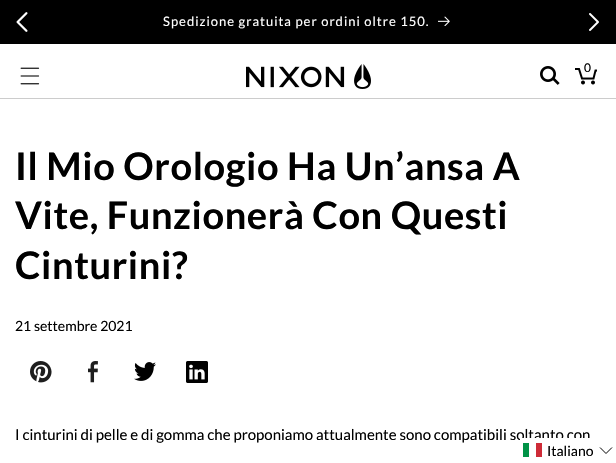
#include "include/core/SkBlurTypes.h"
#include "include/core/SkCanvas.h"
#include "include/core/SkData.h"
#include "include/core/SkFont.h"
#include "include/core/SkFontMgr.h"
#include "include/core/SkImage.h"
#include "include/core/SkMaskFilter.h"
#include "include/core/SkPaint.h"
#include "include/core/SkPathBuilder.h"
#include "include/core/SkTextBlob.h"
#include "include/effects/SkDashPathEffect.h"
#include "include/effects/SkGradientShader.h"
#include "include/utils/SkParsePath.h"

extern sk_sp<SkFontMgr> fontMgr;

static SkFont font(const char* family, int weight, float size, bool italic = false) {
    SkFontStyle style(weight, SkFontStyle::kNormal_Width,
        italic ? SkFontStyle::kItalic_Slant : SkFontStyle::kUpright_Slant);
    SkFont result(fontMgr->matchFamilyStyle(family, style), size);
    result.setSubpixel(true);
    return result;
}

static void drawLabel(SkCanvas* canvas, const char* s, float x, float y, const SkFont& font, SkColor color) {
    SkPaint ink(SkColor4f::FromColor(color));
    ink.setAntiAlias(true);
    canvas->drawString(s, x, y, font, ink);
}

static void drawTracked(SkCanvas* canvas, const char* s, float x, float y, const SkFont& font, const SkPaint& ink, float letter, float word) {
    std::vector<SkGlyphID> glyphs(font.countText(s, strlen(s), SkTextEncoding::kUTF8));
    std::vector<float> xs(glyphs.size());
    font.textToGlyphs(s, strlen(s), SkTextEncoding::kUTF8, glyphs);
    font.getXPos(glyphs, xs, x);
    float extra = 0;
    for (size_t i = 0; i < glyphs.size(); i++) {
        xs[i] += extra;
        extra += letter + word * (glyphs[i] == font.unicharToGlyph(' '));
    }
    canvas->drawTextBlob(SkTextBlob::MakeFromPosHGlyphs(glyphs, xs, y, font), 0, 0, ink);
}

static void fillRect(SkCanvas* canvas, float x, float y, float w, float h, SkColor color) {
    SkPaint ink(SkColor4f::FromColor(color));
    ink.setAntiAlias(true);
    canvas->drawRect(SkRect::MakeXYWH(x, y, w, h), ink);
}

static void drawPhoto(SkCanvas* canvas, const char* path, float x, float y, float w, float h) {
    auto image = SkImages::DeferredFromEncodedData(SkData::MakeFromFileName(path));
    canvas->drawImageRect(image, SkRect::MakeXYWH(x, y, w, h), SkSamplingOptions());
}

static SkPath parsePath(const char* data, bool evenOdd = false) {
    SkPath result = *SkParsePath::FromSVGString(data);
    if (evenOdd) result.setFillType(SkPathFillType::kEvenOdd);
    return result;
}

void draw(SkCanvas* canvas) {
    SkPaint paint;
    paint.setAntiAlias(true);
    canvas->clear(0xFFFFFFFF);
    fillRect(canvas, 0, 0, 616, 44, 0xFF000000);
    drawPhoto(canvas, "assets/img1.png", 16, 12, 12, 20);
    SkFont font1 = font("Lato", 400, 13);
    paint.setColor(0xFFFFFFFF);
    drawTracked(canvas, "Spedizione gratuita per ordini oltre 150.", 163, 26, font1, paint, 1, 0);
    drawPhoto(canvas, "assets/img2.png", 438, 16, 12, 10);
    drawPhoto(canvas, "assets/img3.png", 589, 13, 10, 18);
    fillRect(canvas, 0, 98, 616, 1, 0xFFCCCCCC);
    drawPhoto(canvas, "assets/img4.png", 20, 67, 20, 18);
    drawPhoto(canvas, "assets/img5.png", 246, 64, 125, 25);
    drawPhoto(canvas, "assets/img6.png", 540, 66, 20, 19);
    drawPhoto(canvas, "assets/img7.png", 575, 68, 22, 17);
    SkFont font2 = font("Lato", 400, 12);
    drawLabel(canvas, "0", 584, 72, font2, 0xFF000000);
    SkFont font3 = font("Lato", 700, 38);
    paint.setColor(0xFF000000);
    drawTracked(canvas, "Il Mio Orologio Ha Un’ansa A", 15, 180, font3, paint, 0.6f, 0);
    drawTracked(canvas, "Vite, Funzionerà Con Questi", 15, 229, font3, paint, 0.6f, 0);
    drawTracked(canvas, "Cinturini?", 15, 279, font3, paint, 0.6f, 0);
    SkFont font4 = font("Lato", 400, 14);
    drawLabel(canvas, "21 settembre 2021", 15, 331, font4, 0xFF000000);
    drawPhoto(canvas, "assets/img8.png", 30, 361, 22, 22);
    drawPhoto(canvas, "assets/img9.png", 88, 361, 10, 22);
    drawPhoto(canvas, "assets/img10.png", 134, 362, 22, 19);
    drawPhoto(canvas, "assets/img11.png", 186, 361, 22, 22);
    SkFont font5 = font("Lato", 400, 15);
    drawLabel(canvas, "I cinturini di pelle e di gomma che proponiamo attualmente sono compatibili soltanto con", 15, 440, font5, 0xFF000000);
    fillRect(canvas, 520, 438, 70, 3, 0xFFFFFFFF);
    fillRect(canvas, 523, 443, 6, 14, 0xFF009246);
    fillRect(canvas, 536, 443, 6, 14, 0xFFCE2B37);
    drawLabel(canvas, "Italiano", 547, 456, font4, 0xFF000000);
    paint.setStroke(true);
    paint.setStrokeWidth(1);
    canvas->drawPath(parsePath("M600 447.5L606 453.5L612 447.5"), paint);
}
